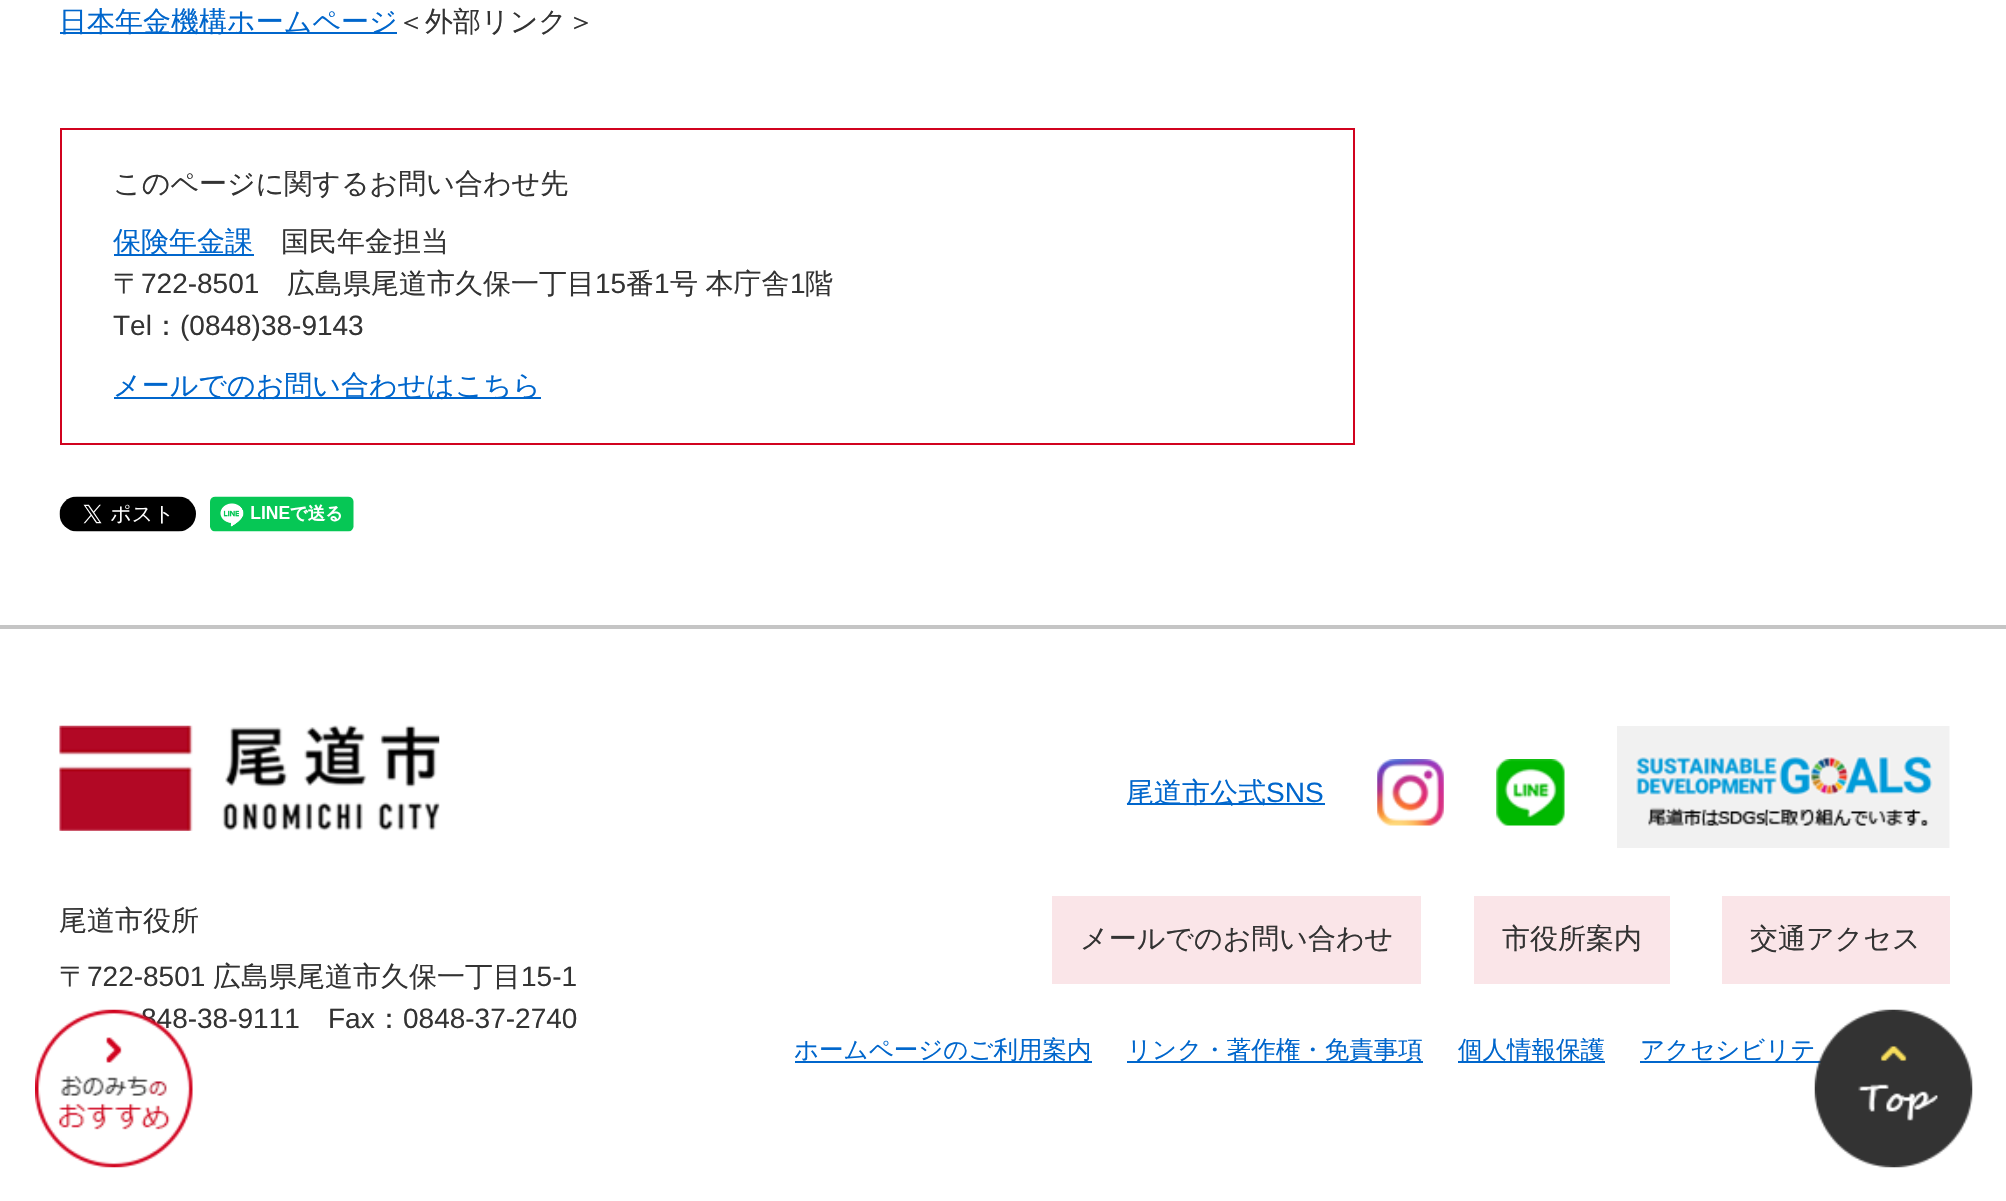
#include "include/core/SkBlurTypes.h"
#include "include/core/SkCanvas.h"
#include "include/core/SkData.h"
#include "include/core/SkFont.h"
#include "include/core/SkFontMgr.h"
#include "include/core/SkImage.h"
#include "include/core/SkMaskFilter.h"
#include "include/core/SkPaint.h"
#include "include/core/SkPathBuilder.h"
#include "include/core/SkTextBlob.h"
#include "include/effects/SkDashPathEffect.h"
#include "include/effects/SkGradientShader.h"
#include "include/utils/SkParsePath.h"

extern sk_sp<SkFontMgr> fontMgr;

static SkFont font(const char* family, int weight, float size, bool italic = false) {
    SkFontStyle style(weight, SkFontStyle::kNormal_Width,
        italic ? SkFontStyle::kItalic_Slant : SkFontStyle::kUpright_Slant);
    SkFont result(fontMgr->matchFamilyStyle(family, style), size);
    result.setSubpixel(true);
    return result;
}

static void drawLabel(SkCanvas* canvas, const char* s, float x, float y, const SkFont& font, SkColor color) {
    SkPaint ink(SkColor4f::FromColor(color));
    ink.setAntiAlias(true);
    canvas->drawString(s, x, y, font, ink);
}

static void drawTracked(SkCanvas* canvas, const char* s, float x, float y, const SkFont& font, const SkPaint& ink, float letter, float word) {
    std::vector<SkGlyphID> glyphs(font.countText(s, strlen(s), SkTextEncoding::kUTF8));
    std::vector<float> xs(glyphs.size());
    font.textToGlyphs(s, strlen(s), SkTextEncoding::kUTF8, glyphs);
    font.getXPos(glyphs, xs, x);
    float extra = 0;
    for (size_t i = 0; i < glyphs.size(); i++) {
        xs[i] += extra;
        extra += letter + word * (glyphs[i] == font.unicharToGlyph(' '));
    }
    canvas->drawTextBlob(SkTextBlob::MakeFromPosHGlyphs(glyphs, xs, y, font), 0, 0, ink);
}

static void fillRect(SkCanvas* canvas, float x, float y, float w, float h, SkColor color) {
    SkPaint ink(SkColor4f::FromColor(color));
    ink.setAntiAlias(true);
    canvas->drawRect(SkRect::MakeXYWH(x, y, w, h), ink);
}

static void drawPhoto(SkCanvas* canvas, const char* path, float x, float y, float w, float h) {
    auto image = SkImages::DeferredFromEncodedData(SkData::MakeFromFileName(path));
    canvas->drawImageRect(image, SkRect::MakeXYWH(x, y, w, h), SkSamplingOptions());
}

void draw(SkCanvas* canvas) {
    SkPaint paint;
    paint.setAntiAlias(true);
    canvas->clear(0xFFFFFFFF);
    fillRect(canvas, 60, 32, 337, 2, 0xFF0066CC);
    SkFont font1 = font("WenQuanYi Zen Hei", 500, 28);
    drawLabel(canvas, "日本年金機構ホームページ", 59, 31, font1, 0xFF0066CC);
    drawLabel(canvas, "＜外部リンク＞", 397, 31, font1, 0xFF333333);
    paint.setStroke(true);
    paint.setStrokeWidth(2);
    paint.setColor(0xFFD1031F);
    canvas->drawRect(SkRect::MakeXYWH(61, 129, 1293, 315), paint);
    drawLabel(canvas, "このページに関するお問い合わせ先", 113, 193, font1, 0xFF333333);
    fillRect(canvas, 114, 254, 140, 2, 0xFF0066CC);
    drawLabel(canvas, "保険年金課", 113, 251, font1, 0xFF0066CC);
    drawLabel(canvas, "国民年金担当", 281, 251, font1, 0xFF333333);
    drawLabel(canvas, "〒", 113, 293, font1, 0xFF333333);
    SkFont font2 = font("Liberation Sans", 400, 28);
    drawLabel(canvas, "722-8501", 141, 293, font2, 0xFF333333);
    drawLabel(canvas, "広島県尾道市久保一丁目", 287, 293, font1, 0xFF333333);
    drawLabel(canvas, "15", 595, 293, font2, 0xFF333333);
    drawLabel(canvas, "番", 626, 293, font1, 0xFF333333);
    drawLabel(canvas, "1", 654, 293, font2, 0xFF333333);
    paint.setStroke(false);
    paint.setColor(0xFF333333);
    drawTracked(canvas, "号 本庁舎", 670, 293, font1, paint, 0, -1);
    drawLabel(canvas, "1", 790, 293, font2, 0xFF333333);
    drawLabel(canvas, "階", 805, 293, font1, 0xFF333333);
    drawLabel(canvas, "Tel", 113, 335, font2, 0xFF333333);
    drawLabel(canvas, "：", 152, 335, font1, 0xFF333333);
    drawLabel(canvas, "(0848)38-9143", 180, 335, font2, 0xFF333333);
    fillRect(canvas, 114, 397, 427, 2, 0xFF0066CC);
    drawLabel(canvas, "メールでのお問い合わせはこちら", 113, 395, font1, 0xFF0066CC);
    drawPhoto(canvas, "assets/img1.png", 59, 496, 137, 36);
    drawPhoto(canvas, "assets/img2.png", 210, 496, 144, 36);
    fillRect(canvas, 0, 625, 2006, 4, 0xFFC5C5C5);
    drawPhoto(canvas, "assets/img3.png", 59, 725, 381, 106);
    drawLabel(canvas, "尾道市役所", 59, 930, font1, 0xFF333333);
    drawLabel(canvas, "〒", 59, 986, font1, 0xFF333333);
    drawLabel(canvas, "722-8501", 87, 986, font2, 0xFF333333);
    drawLabel(canvas, "広島県尾道市久保一丁目", 213, 986, font1, 0xFF333333);
    drawLabel(canvas, "15-1", 521, 986, font2, 0xFF333333);
    drawLabel(canvas, "848-38-9111", 141, 1028, font2, 0xFF333333);
    drawLabel(canvas, "Fax", 328, 1028, font2, 0xFF333333);
    drawLabel(canvas, "：", 375, 1028, font1, 0xFF333333);
    drawLabel(canvas, "0848-37-2740", 403, 1028, font2, 0xFF333333);
    fillRect(canvas, 1127, 803, 198, 2, 0xFF0066CC);
    drawLabel(canvas, "尾道市公式", 1126, 802, font1, 0xFF0066CC);
    drawLabel(canvas, "SNS", 1266, 802, font2, 0xFF0066CC);
    drawPhoto(canvas, "assets/img4.png", 1377, 759, 67, 67);
    drawPhoto(canvas, "assets/img5.png", 1496, 759, 69, 67);
    drawPhoto(canvas, "assets/img6.png", 1617, 726, 333, 122);
    fillRect(canvas, 1052, 896, 369, 88, 0xFFFAE5E8);
    drawLabel(canvas, "メールでのお問い合わせ", 1080, 948, font1, 0xFF333333);
    fillRect(canvas, 1474, 896, 196, 88, 0xFFFAE5E8);
    drawLabel(canvas, "市役所案内", 1502, 948, font1, 0xFF333333);
    fillRect(canvas, 1722, 896, 228, 88, 0xFFFAE5E8);
    drawLabel(canvas, "交通アクセス", 1750, 948, font1, 0xFF333333);
    fillRect(canvas, 795, 1061, 297, 2, 0xFF0066CC);
    SkFont font3 = font("WenQuanYi Zen Hei", 500, 24.5f);
    drawLabel(canvas, "ホームページのご利用案内", 794, 1058, font3, 0xFF0066CC);
    fillRect(canvas, 1127, 1061, 296, 2, 0xFF0066CC);
    drawLabel(canvas, "リンク・著作権・免責事項", 1127, 1058, font3, 0xFF0066CC);
    fillRect(canvas, 1458, 1061, 147, 2, 0xFF0066CC);
    drawLabel(canvas, "個人情報保護", 1458, 1058, font3, 0xFF0066CC);
    fillRect(canvas, 1640, 1061, 181, 2, 0xFF0066CC);
    drawLabel(canvas, "アクセシビリテ", 1640, 1058, font3, 0xFF0066CC);
    drawPhoto(canvas, "assets/img7.png", 35, 1009, 158, 159);
    drawPhoto(canvas, "assets/img8.png", 1814, 1009, 159, 159);
}
